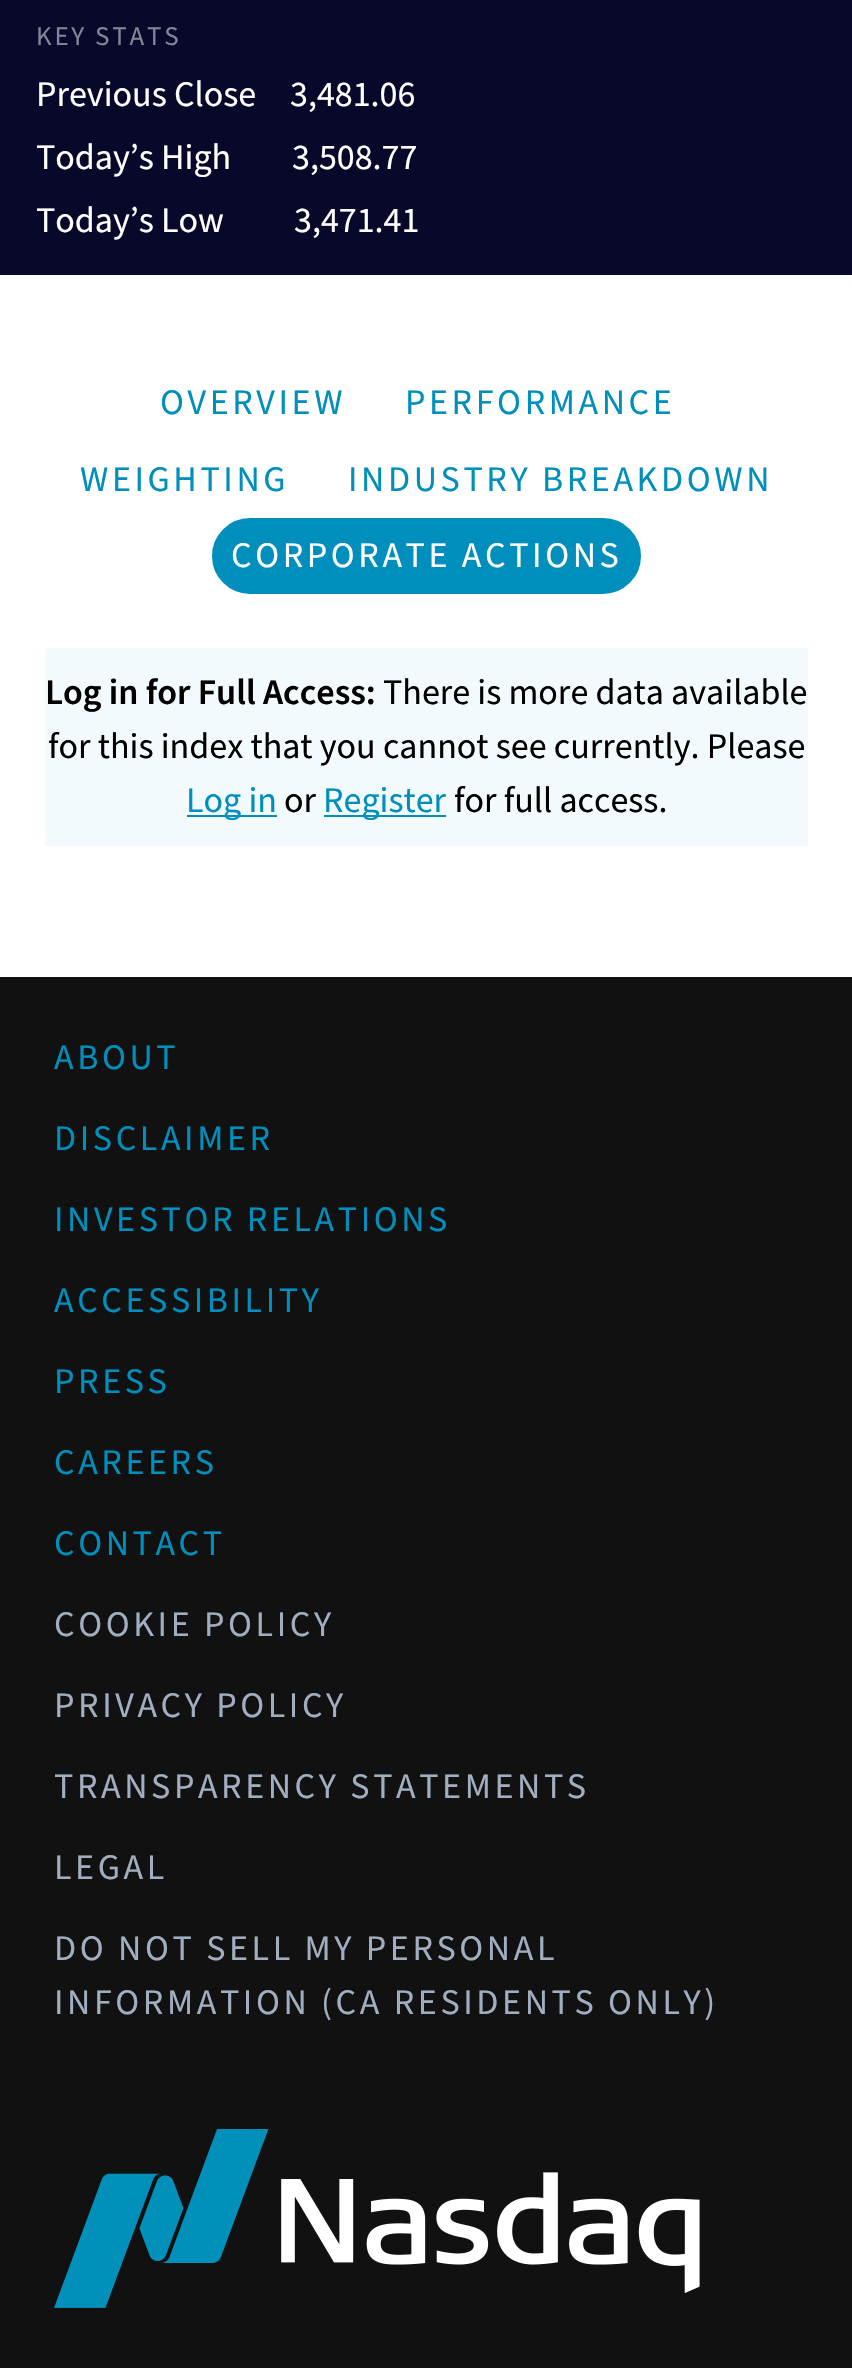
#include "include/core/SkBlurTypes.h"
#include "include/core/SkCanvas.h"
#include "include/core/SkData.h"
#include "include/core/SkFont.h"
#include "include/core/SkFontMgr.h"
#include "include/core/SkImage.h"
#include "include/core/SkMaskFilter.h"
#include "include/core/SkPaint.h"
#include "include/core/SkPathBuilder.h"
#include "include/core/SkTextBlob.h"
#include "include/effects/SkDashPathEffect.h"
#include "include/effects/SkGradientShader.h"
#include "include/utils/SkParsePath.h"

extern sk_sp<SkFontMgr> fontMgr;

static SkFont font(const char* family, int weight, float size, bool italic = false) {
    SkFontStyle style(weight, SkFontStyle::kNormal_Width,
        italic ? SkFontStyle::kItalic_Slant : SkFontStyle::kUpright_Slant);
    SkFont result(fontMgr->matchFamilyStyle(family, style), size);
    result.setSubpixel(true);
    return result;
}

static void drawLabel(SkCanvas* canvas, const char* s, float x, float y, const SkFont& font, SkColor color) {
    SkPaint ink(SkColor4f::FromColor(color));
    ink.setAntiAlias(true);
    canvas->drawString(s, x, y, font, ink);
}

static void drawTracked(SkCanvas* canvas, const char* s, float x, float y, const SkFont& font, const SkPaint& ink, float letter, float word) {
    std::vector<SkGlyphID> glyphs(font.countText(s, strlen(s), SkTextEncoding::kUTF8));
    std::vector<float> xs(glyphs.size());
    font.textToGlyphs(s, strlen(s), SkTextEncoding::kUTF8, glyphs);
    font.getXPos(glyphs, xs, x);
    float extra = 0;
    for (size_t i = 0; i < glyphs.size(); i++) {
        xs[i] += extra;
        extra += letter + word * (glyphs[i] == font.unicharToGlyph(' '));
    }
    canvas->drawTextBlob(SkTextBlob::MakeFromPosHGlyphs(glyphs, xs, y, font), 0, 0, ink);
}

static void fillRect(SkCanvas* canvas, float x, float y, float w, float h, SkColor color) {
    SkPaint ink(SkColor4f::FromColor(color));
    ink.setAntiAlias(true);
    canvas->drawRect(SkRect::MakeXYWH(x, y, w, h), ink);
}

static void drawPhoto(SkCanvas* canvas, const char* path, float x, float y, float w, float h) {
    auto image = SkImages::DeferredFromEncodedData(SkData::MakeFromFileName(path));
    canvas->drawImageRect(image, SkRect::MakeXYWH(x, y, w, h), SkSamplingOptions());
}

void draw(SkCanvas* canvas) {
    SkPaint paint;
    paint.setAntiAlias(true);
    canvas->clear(0xFFFFFFFF);
    fillRect(canvas, 0, 0, 852, 275, 0xFF08082A);
    SkFont font1 = font("Source Sans Pro", 400, 27);
    paint.setColor(0xFF848495);
    drawTracked(canvas, "KEY STATS", 36, 45, font1, paint, 2.75f, 0);
    SkFont font2 = font("Source Sans Pro", 400, 36);
    drawLabel(canvas, "Previous Close", 36, 106, font2, 0xFFFFFFFF);
    drawLabel(canvas, "3,481.06", 290, 106, font2, 0xFFFFFFFF);
    drawLabel(canvas, "Today’s High", 36, 169, font2, 0xFFFFFFFF);
    drawLabel(canvas, "3,508.77", 292, 169, font2, 0xFFFFFFFF);
    drawLabel(canvas, "Today’s Low", 36, 232, font2, 0xFFFFFFFF);
    drawLabel(canvas, "3,471.41", 294, 232, font2, 0xFFFFFFFF);
    paint.setColor(0xFF008FBC);
    drawTracked(canvas, "OVERVIEW", 160, 414, font2, paint, 3.6f, 0);
    drawTracked(canvas, "PERFORMANCE", 405, 414, font2, paint, 3.6f, 0);
    drawTracked(canvas, "WEIGHTING", 80, 491, font2, paint, 3.6f, 0);
    drawTracked(canvas, "INDUSTRY BREAKDOWN", 348, 491, font2, paint, 3.6f, 0);
    canvas->drawRoundRect(SkRect::MakeXYWH(213, 519, 427, 74), 37, 37, paint);
    paint.setStroke(true);
    paint.setStrokeWidth(2);
    canvas->drawRoundRect(SkRect::MakeXYWH(213, 519, 427, 74), 37, 37, paint);
    paint.setStroke(false);
    paint.setColor(0xFFFFFFFF);
    drawTracked(canvas, "CORPORATE ACTIONS", 231, 567, font2, paint, 3.6f, 0);
    fillRect(canvas, 45, 648, 763, 198, 0xFFF3FAFD);
    SkFont font3 = font("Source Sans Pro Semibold", 600, 36);
    drawLabel(canvas, "Log in for Full Access:", 45, 704, font3, 0xFF000000);
    drawLabel(canvas, "There is more data available", 383, 704, font2, 0xFF000000);
    drawLabel(canvas, "for this index that you cannot see currently. Please", 48, 758, font2, 0xFF000000);
    fillRect(canvas, 187, 815, 90, 2, 0xFF008FBC);
    drawLabel(canvas, "Log in", 186, 812, font2, 0xFF008FBC);
    drawLabel(canvas, "or", 284, 812, font2, 0xFF000000);
    fillRect(canvas, 324, 815, 122, 2, 0xFF008FBC);
    drawLabel(canvas, "Register", 323, 812, font2, 0xFF008FBC);
    drawLabel(canvas, "for full access.", 454, 812, font2, 0xFF000000);
    fillRect(canvas, 0, 977, 852, 1391, 0xFF111111);
    paint.setColor(0xFF008FBC);
    drawTracked(canvas, "ABOUT", 54, 1069, font2, paint, 3.6f, 0);
    drawTracked(canvas, "DISCLAIMER", 54, 1150, font2, paint, 3.6f, 0);
    drawTracked(canvas, "INVESTOR RELATIONS", 54, 1231, font2, paint, 3.6f, 0);
    drawTracked(canvas, "ACCESSIBILITY", 54, 1312, font2, paint, 3.6f, 0);
    drawTracked(canvas, "PRESS", 54, 1393, font2, paint, 3.6f, 0);
    drawTracked(canvas, "CAREERS", 54, 1474, font2, paint, 3.6f, 0);
    drawTracked(canvas, "CONTACT", 54, 1555, font2, paint, 3.6f, 0);
    paint.setColor(0xFFA0AEC0);
    drawTracked(canvas, "COOKIE POLICY", 54, 1636, font2, paint, 3.6f, 0);
    drawTracked(canvas, "PRIVACY POLICY", 54, 1717, font2, paint, 3.6f, 0);
    drawTracked(canvas, "TRANSPARENCY STATEMENTS", 54, 1798, font2, paint, 3.6f, 0);
    drawTracked(canvas, "LEGAL", 54, 1879, font2, paint, 3.6f, 0);
    drawTracked(canvas, "DO NOT SELL MY PERSONAL", 54, 1960, font2, paint, 3.6f, 0);
    drawTracked(canvas, "INFORMATION (CA RESIDENTS ONLY)", 54, 2014, font2, paint, 3.6f, 0);
    drawPhoto(canvas, "assets/img1.png", 54, 2129, 646, 179);
}
